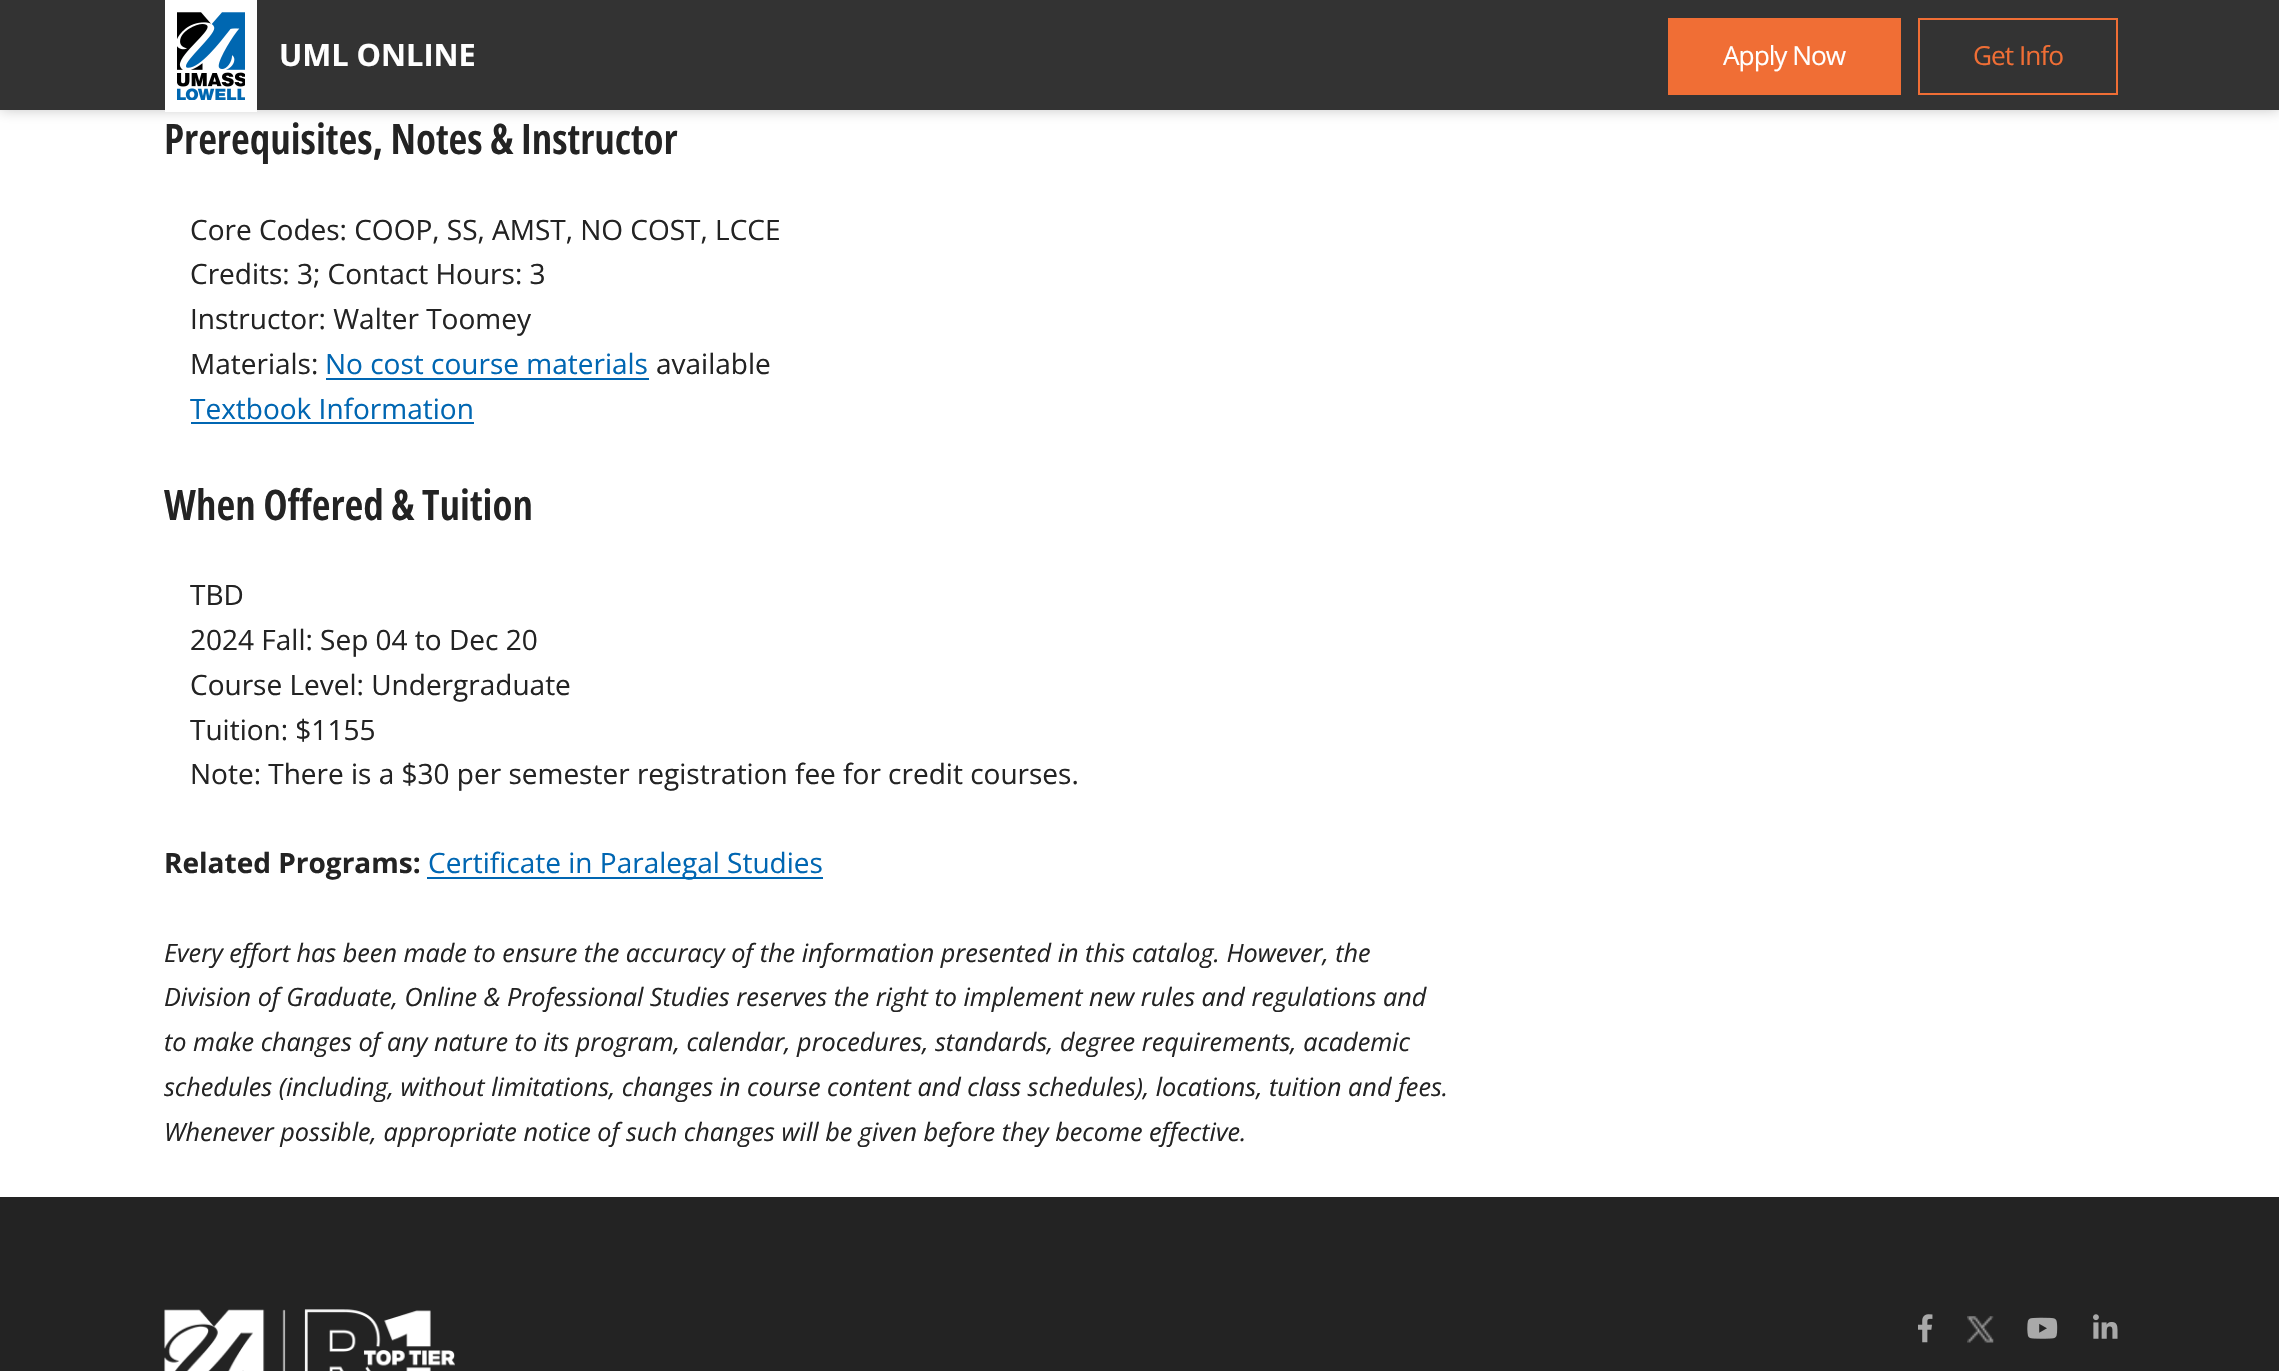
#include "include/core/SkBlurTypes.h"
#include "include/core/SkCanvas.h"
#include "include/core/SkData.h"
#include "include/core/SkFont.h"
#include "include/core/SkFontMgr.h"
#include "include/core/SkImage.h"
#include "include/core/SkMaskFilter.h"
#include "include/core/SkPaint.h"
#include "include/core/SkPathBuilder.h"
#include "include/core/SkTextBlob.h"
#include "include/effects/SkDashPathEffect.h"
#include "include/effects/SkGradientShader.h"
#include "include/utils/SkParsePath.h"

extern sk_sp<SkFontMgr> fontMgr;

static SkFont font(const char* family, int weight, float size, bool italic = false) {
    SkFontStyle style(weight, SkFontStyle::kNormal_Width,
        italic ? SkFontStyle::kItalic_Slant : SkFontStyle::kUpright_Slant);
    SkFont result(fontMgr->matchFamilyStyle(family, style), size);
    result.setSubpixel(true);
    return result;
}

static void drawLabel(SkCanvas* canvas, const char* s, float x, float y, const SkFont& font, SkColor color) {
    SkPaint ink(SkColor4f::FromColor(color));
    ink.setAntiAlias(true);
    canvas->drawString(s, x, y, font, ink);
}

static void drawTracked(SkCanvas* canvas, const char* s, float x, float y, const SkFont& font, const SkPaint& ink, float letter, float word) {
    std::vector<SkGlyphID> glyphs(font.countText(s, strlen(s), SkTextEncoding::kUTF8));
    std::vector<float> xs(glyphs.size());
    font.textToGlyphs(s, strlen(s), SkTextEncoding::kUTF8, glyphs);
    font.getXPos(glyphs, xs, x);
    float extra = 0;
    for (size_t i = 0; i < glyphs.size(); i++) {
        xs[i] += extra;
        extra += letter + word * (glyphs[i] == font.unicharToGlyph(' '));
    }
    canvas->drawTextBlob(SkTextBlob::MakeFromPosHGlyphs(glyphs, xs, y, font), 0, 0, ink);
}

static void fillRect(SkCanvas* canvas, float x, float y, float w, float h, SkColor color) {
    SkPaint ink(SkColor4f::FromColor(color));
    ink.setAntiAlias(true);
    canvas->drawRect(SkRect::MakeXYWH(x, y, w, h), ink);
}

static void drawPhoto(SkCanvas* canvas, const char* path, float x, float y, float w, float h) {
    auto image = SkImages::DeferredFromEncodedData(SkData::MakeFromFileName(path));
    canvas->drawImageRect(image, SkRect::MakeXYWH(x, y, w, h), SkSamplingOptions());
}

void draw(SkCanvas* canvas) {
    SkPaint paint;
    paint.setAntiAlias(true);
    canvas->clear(0xFFFFFFFF);
    paint.setColor(0x40000000);
    paint.setMaskFilter(SkMaskFilter::MakeBlur(kNormal_SkBlurStyle, 7));
    canvas->drawRect(SkRect::MakeXYWH(0, -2, 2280, 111), paint);
    paint.setMaskFilter(nullptr);
    fillRect(canvas, 0, 0, 2279, 110, 0xFF333333);
    fillRect(canvas, 165, 0, 92, 112, 0xFFFFFFFF);
    drawPhoto(canvas, "assets/img1.png", 177, 12, 68, 88);
    SkFont font1 = font("Open Sans", 700, 30.75f);
    drawLabel(canvas, "UML ONLINE", 279, 66, font1, 0xFFFFFFFF);
    fillRect(canvas, 1668, 18, 233, 77, 0xFFF06E35);
    SkFont font2 = font("Open Sans", 400, 26.25f);
    paint.setColor(0xFFFFFFFF);
    drawTracked(canvas, "Apply Now", 1723, 65, font2, paint, -1, 0);
    paint.setStroke(true);
    paint.setStrokeWidth(2);
    paint.setColor(0xFFF06E35);
    canvas->drawRect(SkRect::MakeXYWH(1919, 19, 198, 75), paint);
    paint.setStroke(false);
    drawTracked(canvas, "Get Info", 1973, 65, font2, paint, -1, 0);
    SkFont font3 = font("Open Sans", 600, 42);
    drawLabel(canvas, "Prerequisites, Notes & Instructor", 164, 154, font3, 0xFF232323);
    SkFont font4 = font("Open Sans", 400, 28);
    drawLabel(canvas, "Core Codes: COOP, SS, AMST, NO COST, LCCE", 190, 240, font4, 0xFF232323);
    drawLabel(canvas, "Credits: 3; Contact Hours: 3", 190, 284, font4, 0xFF232323);
    drawLabel(canvas, "Instructor: Walter Toomey", 190, 329, font4, 0xFF232323);
    drawLabel(canvas, "Materials:", 190, 374, font4, 0xFF232323);
    drawLabel(canvas, "No cost course materials", 325, 374, font4, 0xFF0066B2);
    fillRect(canvas, 326, 378, 323, 2, 0xFF0066B2);
    drawLabel(canvas, "available", 656, 374, font4, 0xFF232323);
    drawLabel(canvas, "Textbook Information", 190, 419, font4, 0xFF0066B2);
    fillRect(canvas, 191, 422, 283, 2, 0xFF0066B2);
    drawLabel(canvas, "When Offered & Tuition", 164, 520, font3, 0xFF232323);
    drawLabel(canvas, "TBD", 190, 605, font4, 0xFF232323);
    drawLabel(canvas, "2024 Fall: Sep 04 to Dec 20", 190, 650, font4, 0xFF232323);
    drawLabel(canvas, "Course Level: Undergraduate", 190, 695, font4, 0xFF232323);
    drawLabel(canvas, "Tuition: $1155", 190, 740, font4, 0xFF232323);
    drawLabel(canvas, "Note: There is a $30 per semester registration fee for credit courses.", 190, 784, font4, 0xFF232323);
    SkFont font5 = font("Open Sans", 700, 28);
    drawLabel(canvas, "Related Programs:", 164, 873, font5, 0xFF232323);
    fillRect(canvas, 427, 877, 396, 2, 0xFF0066B2);
    drawLabel(canvas, "Certificate in Paralegal Studies", 428, 873, font4, 0xFF0066B2);
    SkFont font6 = font("Open Sans", 400, 25.2f, true);
    drawLabel(canvas, "Every effort has been made to ensure the accuracy of the information presented in this catalog. However, the", 164, 962, font6, 0xFF232323);
    drawLabel(canvas, "Division of Graduate, Online & Professional Studies reserves the right to implement new rules and regulations and", 164, 1006, font6, 0xFF232323);
    drawLabel(canvas, "to make changes of any nature to its program, calendar, procedures, standards, degree requirements, academic", 164, 1051, font6, 0xFF232323);
    drawLabel(canvas, "schedules (including, without limitations, changes in course content and class schedules), locations, tuition and fees.", 164, 1096, font6, 0xFF232323);
    drawLabel(canvas, "Whenever possible, appropriate notice of such changes will be given before they become effective.", 164, 1141, font6, 0xFF232323);
    fillRect(canvas, 0, 1197, 2279, 174, 0xFF232323);
    drawPhoto(canvas, "assets/img2.png", 164, 1309, 291, 62);
    drawPhoto(canvas, "assets/img3.png", 1918, 1314, 15, 29);
    drawPhoto(canvas, "assets/img4.png", 1967, 1316, 27, 27);
    drawPhoto(canvas, "assets/img5.png", 2027, 1317, 31, 22);
    drawPhoto(canvas, "assets/img6.png", 2093, 1314, 25, 25);
}
